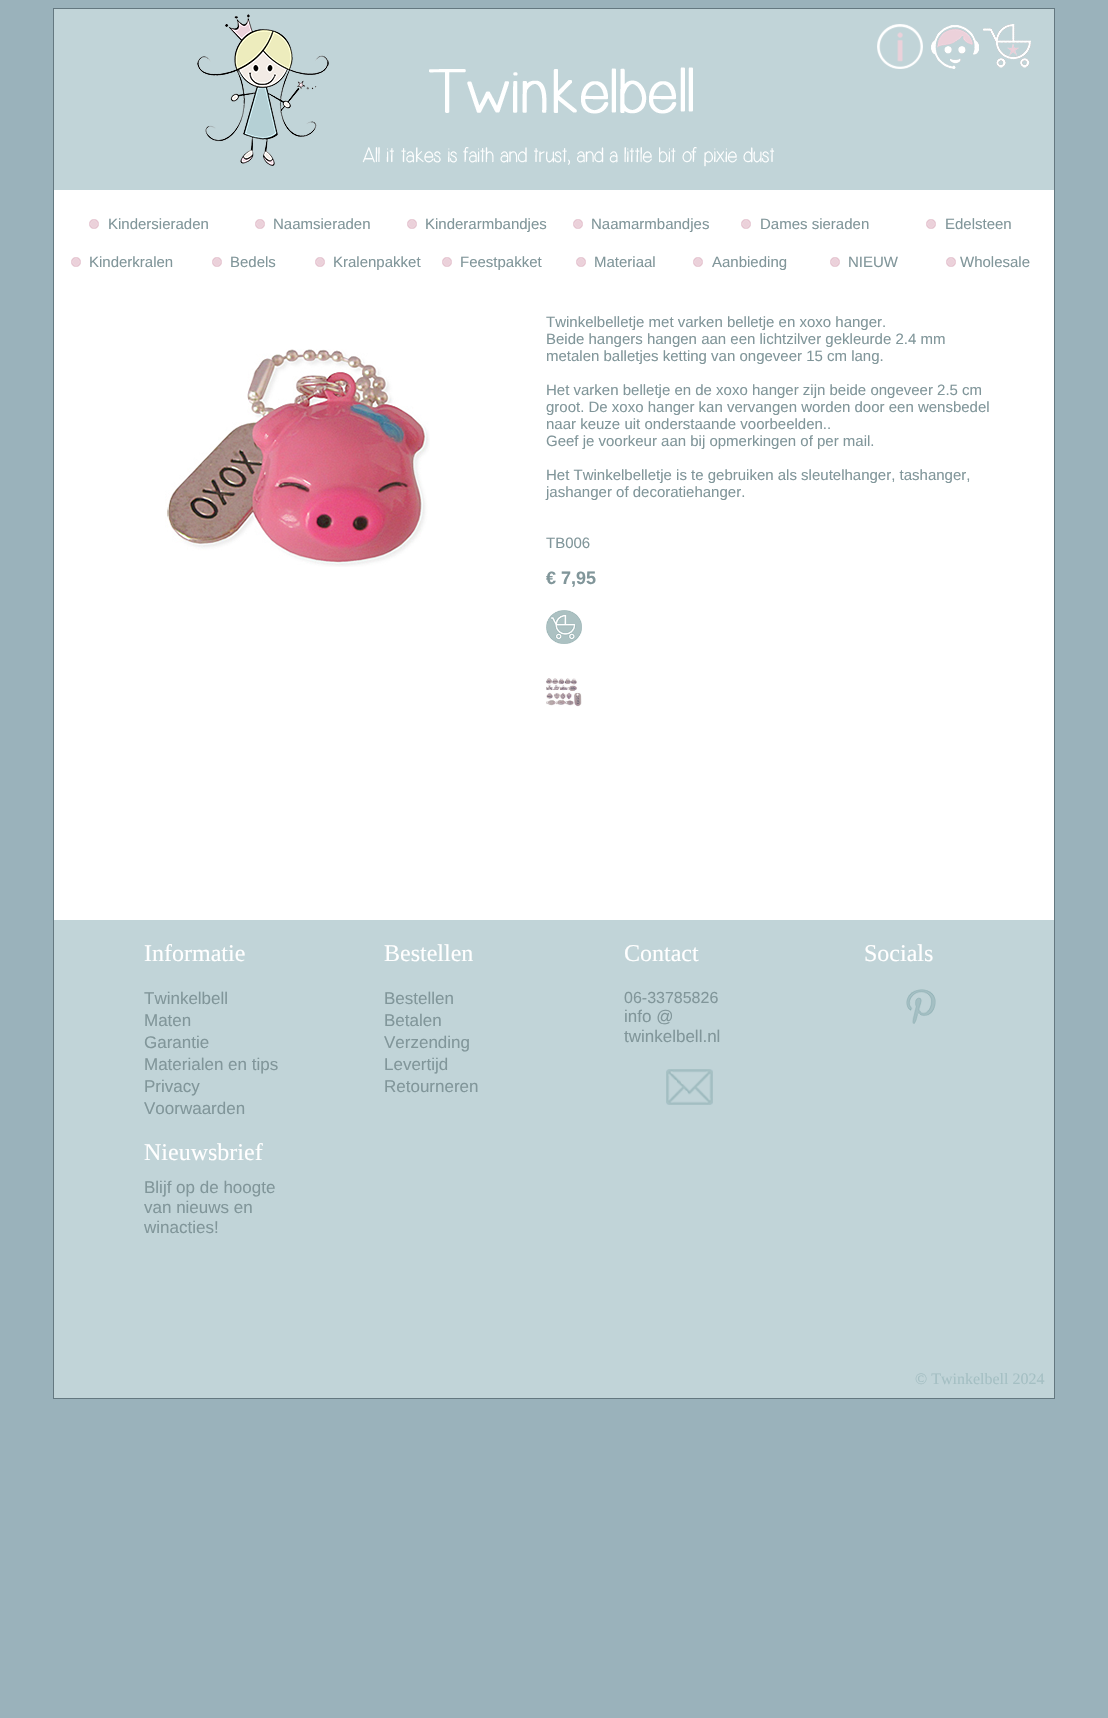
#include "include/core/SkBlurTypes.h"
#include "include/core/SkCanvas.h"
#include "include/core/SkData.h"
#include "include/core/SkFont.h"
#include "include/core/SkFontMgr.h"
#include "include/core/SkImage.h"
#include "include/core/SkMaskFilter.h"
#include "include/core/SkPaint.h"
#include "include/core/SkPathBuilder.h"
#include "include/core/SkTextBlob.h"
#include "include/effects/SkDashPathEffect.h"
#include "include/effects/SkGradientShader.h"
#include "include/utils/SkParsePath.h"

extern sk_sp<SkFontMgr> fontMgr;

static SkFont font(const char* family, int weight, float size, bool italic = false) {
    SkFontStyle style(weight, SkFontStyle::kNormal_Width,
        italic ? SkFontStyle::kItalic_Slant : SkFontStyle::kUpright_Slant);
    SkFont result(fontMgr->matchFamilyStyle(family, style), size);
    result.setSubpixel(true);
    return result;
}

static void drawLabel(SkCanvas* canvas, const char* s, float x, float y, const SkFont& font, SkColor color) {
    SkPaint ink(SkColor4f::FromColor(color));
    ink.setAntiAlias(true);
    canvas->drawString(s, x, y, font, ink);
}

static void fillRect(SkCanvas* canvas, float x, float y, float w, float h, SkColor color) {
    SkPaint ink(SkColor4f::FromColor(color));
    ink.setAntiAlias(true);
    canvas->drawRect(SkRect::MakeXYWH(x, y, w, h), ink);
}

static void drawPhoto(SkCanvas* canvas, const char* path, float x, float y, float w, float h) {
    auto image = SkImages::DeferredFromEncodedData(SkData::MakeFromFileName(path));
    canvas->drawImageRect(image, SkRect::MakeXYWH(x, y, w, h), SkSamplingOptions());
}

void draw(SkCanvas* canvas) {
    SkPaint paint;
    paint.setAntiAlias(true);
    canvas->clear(0xFF9AB2BB);
    fillRect(canvas, 54, 190, 1000, 730, 0xFFFFFFFF);
    paint.setStroke(true);
    paint.setStrokeWidth(1);
    paint.setColor(0xFF647880);
    canvas->drawRect(SkRect::MakeXYWH(53.5f, 8.5f, 1001, 1390), paint);
    fillRect(canvas, 54, 9, 1000, 181, 0xFFC1D4D8);
    drawPhoto(canvas, "assets/img1.png", 197, 14, 578, 153);
    drawPhoto(canvas, "assets/img2.png", 877, 24, 46, 45);
    drawPhoto(canvas, "assets/img3.png", 931, 25, 48, 44);
    drawPhoto(canvas, "assets/img4.png", 983, 24, 48, 44);
    drawPhoto(canvas, "assets/img5.png", 89, 219, 10, 10);
    SkFont font1 = font("Liberation Sans", 400, 15);
    drawLabel(canvas, "Kindersieraden", 108, 229, font1, 0xFF81969A);
    drawPhoto(canvas, "assets/img5.png", 255, 219, 10, 10);
    drawLabel(canvas, "Naamsieraden", 273, 229, font1, 0xFF81969A);
    drawPhoto(canvas, "assets/img5.png", 407, 219, 10, 10);
    drawLabel(canvas, "Kinderarmbandjes", 425, 229, font1, 0xFF81969A);
    drawPhoto(canvas, "assets/img5.png", 573, 219, 10, 10);
    drawLabel(canvas, "Naamarmbandjes", 591, 229, font1, 0xFF81969A);
    drawPhoto(canvas, "assets/img5.png", 741, 219, 10, 10);
    drawLabel(canvas, "Dames sieraden", 760, 229, font1, 0xFF81969A);
    drawPhoto(canvas, "assets/img5.png", 926, 219, 10, 10);
    drawLabel(canvas, "Edelsteen", 945, 229, font1, 0xFF81969A);
    drawPhoto(canvas, "assets/img5.png", 71, 257, 10, 10);
    drawLabel(canvas, "Kinderkralen", 89, 267, font1, 0xFF81969A);
    drawPhoto(canvas, "assets/img5.png", 212, 257, 10, 10);
    drawLabel(canvas, "Bedels", 230, 267, font1, 0xFF81969A);
    drawPhoto(canvas, "assets/img5.png", 315, 257, 10, 10);
    drawLabel(canvas, "Kralenpakket", 333, 267, font1, 0xFF81969A);
    drawPhoto(canvas, "assets/img5.png", 442, 257, 10, 10);
    drawLabel(canvas, "Feestpakket", 460, 267, font1, 0xFF81969A);
    drawPhoto(canvas, "assets/img5.png", 576, 257, 10, 10);
    drawLabel(canvas, "Materiaal", 594, 267, font1, 0xFF81969A);
    drawPhoto(canvas, "assets/img5.png", 693, 257, 10, 10);
    drawLabel(canvas, "Aanbieding", 712, 267, font1, 0xFF81969A);
    drawPhoto(canvas, "assets/img5.png", 830, 257, 10, 10);
    drawLabel(canvas, "NIEUW", 848, 267, font1, 0xFF81969A);
    drawPhoto(canvas, "assets/img5.png", 946, 257, 10, 10);
    drawLabel(canvas, "Wholesale", 960, 267, font1, 0xFF81969A);
    drawPhoto(canvas, "assets/img6.png", 165, 349, 265, 218);
    drawLabel(canvas, "Twinkelbelletje met varken belletje en xoxo hanger.", 546, 327, font1, 0xFF81969A);
    drawLabel(canvas, "Beide hangers hangen aan een lichtzilver gekleurde 2.4 mm", 546, 344, font1, 0xFF81969A);
    drawLabel(canvas, "metalen balletjes ketting van ongeveer 15 cm lang.", 546, 361, font1, 0xFF81969A);
    drawLabel(canvas, "Het varken belletje en de xoxo hanger zijn beide ongeveer 2.5 cm", 546, 395, font1, 0xFF81969A);
    drawLabel(canvas, "groot. De xoxo hanger kan vervangen worden door een wensbedel", 546, 412, font1, 0xFF81969A);
    drawLabel(canvas, "naar keuze uit onderstaande voorbeelden..", 546, 429, font1, 0xFF81969A);
    drawLabel(canvas, "Geef je voorkeur aan bij opmerkingen of per mail.", 546, 446, font1, 0xFF81969A);
    drawLabel(canvas, "Het Twinkelbelletje is te gebruiken als sleutelhanger, tashanger,", 546, 480, font1, 0xFF81969A);
    drawLabel(canvas, "jashanger of decoratiehanger.", 546, 497, font1, 0xFF81969A);
    drawLabel(canvas, "TB006", 546, 548, font1, 0xFF81969A);
    SkFont font2 = font("Liberation Sans", 700, 18);
    drawLabel(canvas, "€ 7,95", 546, 584, font2, 0xFF81969A);
    drawPhoto(canvas, "assets/img7.png", 546, 610, 36, 34);
    drawPhoto(canvas, "assets/img8.png", 546, 678, 36, 29);
    fillRect(canvas, 54, 920, 1000, 478, 0xFFC1D4D8);
    SkFont font3 = font("Liberation Serif", 400, 24);
    drawLabel(canvas, "Informatie", 144, 961, font3, 0xFFFFFFFF);
    SkFont font4 = font("Liberation Sans", 400, 17);
    drawLabel(canvas, "Twinkelbell", 144, 1004, font4, 0xFF81969A);
    drawLabel(canvas, "Maten", 144, 1026, font4, 0xFF81969A);
    drawLabel(canvas, "Garantie", 144, 1048, font4, 0xFF81969A);
    drawLabel(canvas, "Materialen en tips", 144, 1070, font4, 0xFF81969A);
    drawLabel(canvas, "Privacy", 144, 1092, font4, 0xFF81969A);
    drawLabel(canvas, "Voorwaarden", 144, 1114, font4, 0xFF81969A);
    drawLabel(canvas, "Bestellen", 384, 961, font3, 0xFFFFFFFF);
    drawLabel(canvas, "Bestellen", 384, 1004, font4, 0xFF81969A);
    drawLabel(canvas, "Betalen", 384, 1026, font4, 0xFF81969A);
    drawLabel(canvas, "Verzending", 384, 1048, font4, 0xFF81969A);
    drawLabel(canvas, "Levertijd", 384, 1070, font4, 0xFF81969A);
    drawLabel(canvas, "Retourneren", 384, 1092, font4, 0xFF81969A);
    drawLabel(canvas, "Contact", 624, 961, font3, 0xFFFFFFFF);
    SkFont font5 = font("Liberation Sans", 400, 16);
    drawLabel(canvas, "06-33785826", 624, 1003, font5, 0xFF81969A);
    drawLabel(canvas, "info @", 624, 1022, font4, 0xFF81969A);
    drawLabel(canvas, "twinkelbell.nl", 624, 1042, font4, 0xFF81969A);
    drawPhoto(canvas, "assets/img9.png", 666, 1069, 47, 36);
    drawLabel(canvas, "Socials", 864, 961, font3, 0xFFFFFFFF);
    drawPhoto(canvas, "assets/img10.png", 906, 989, 30, 35);
    drawLabel(canvas, "Nieuwsbrief", 144, 1160, font3, 0xFFFFFFFF);
    drawLabel(canvas, "Blijf op de hoogte", 144, 1193, font4, 0xFF81969A);
    drawLabel(canvas, "van nieuws en", 144, 1213, font4, 0xFF81969A);
    drawLabel(canvas, "winacties!", 144, 1233, font4, 0xFF81969A);
    SkFont font6 = font("Liberation Serif", 400, 16);
    drawLabel(canvas, "© Twinkelbell 2024", 915, 1384, font6, 0xFFA4BFC3);
}
